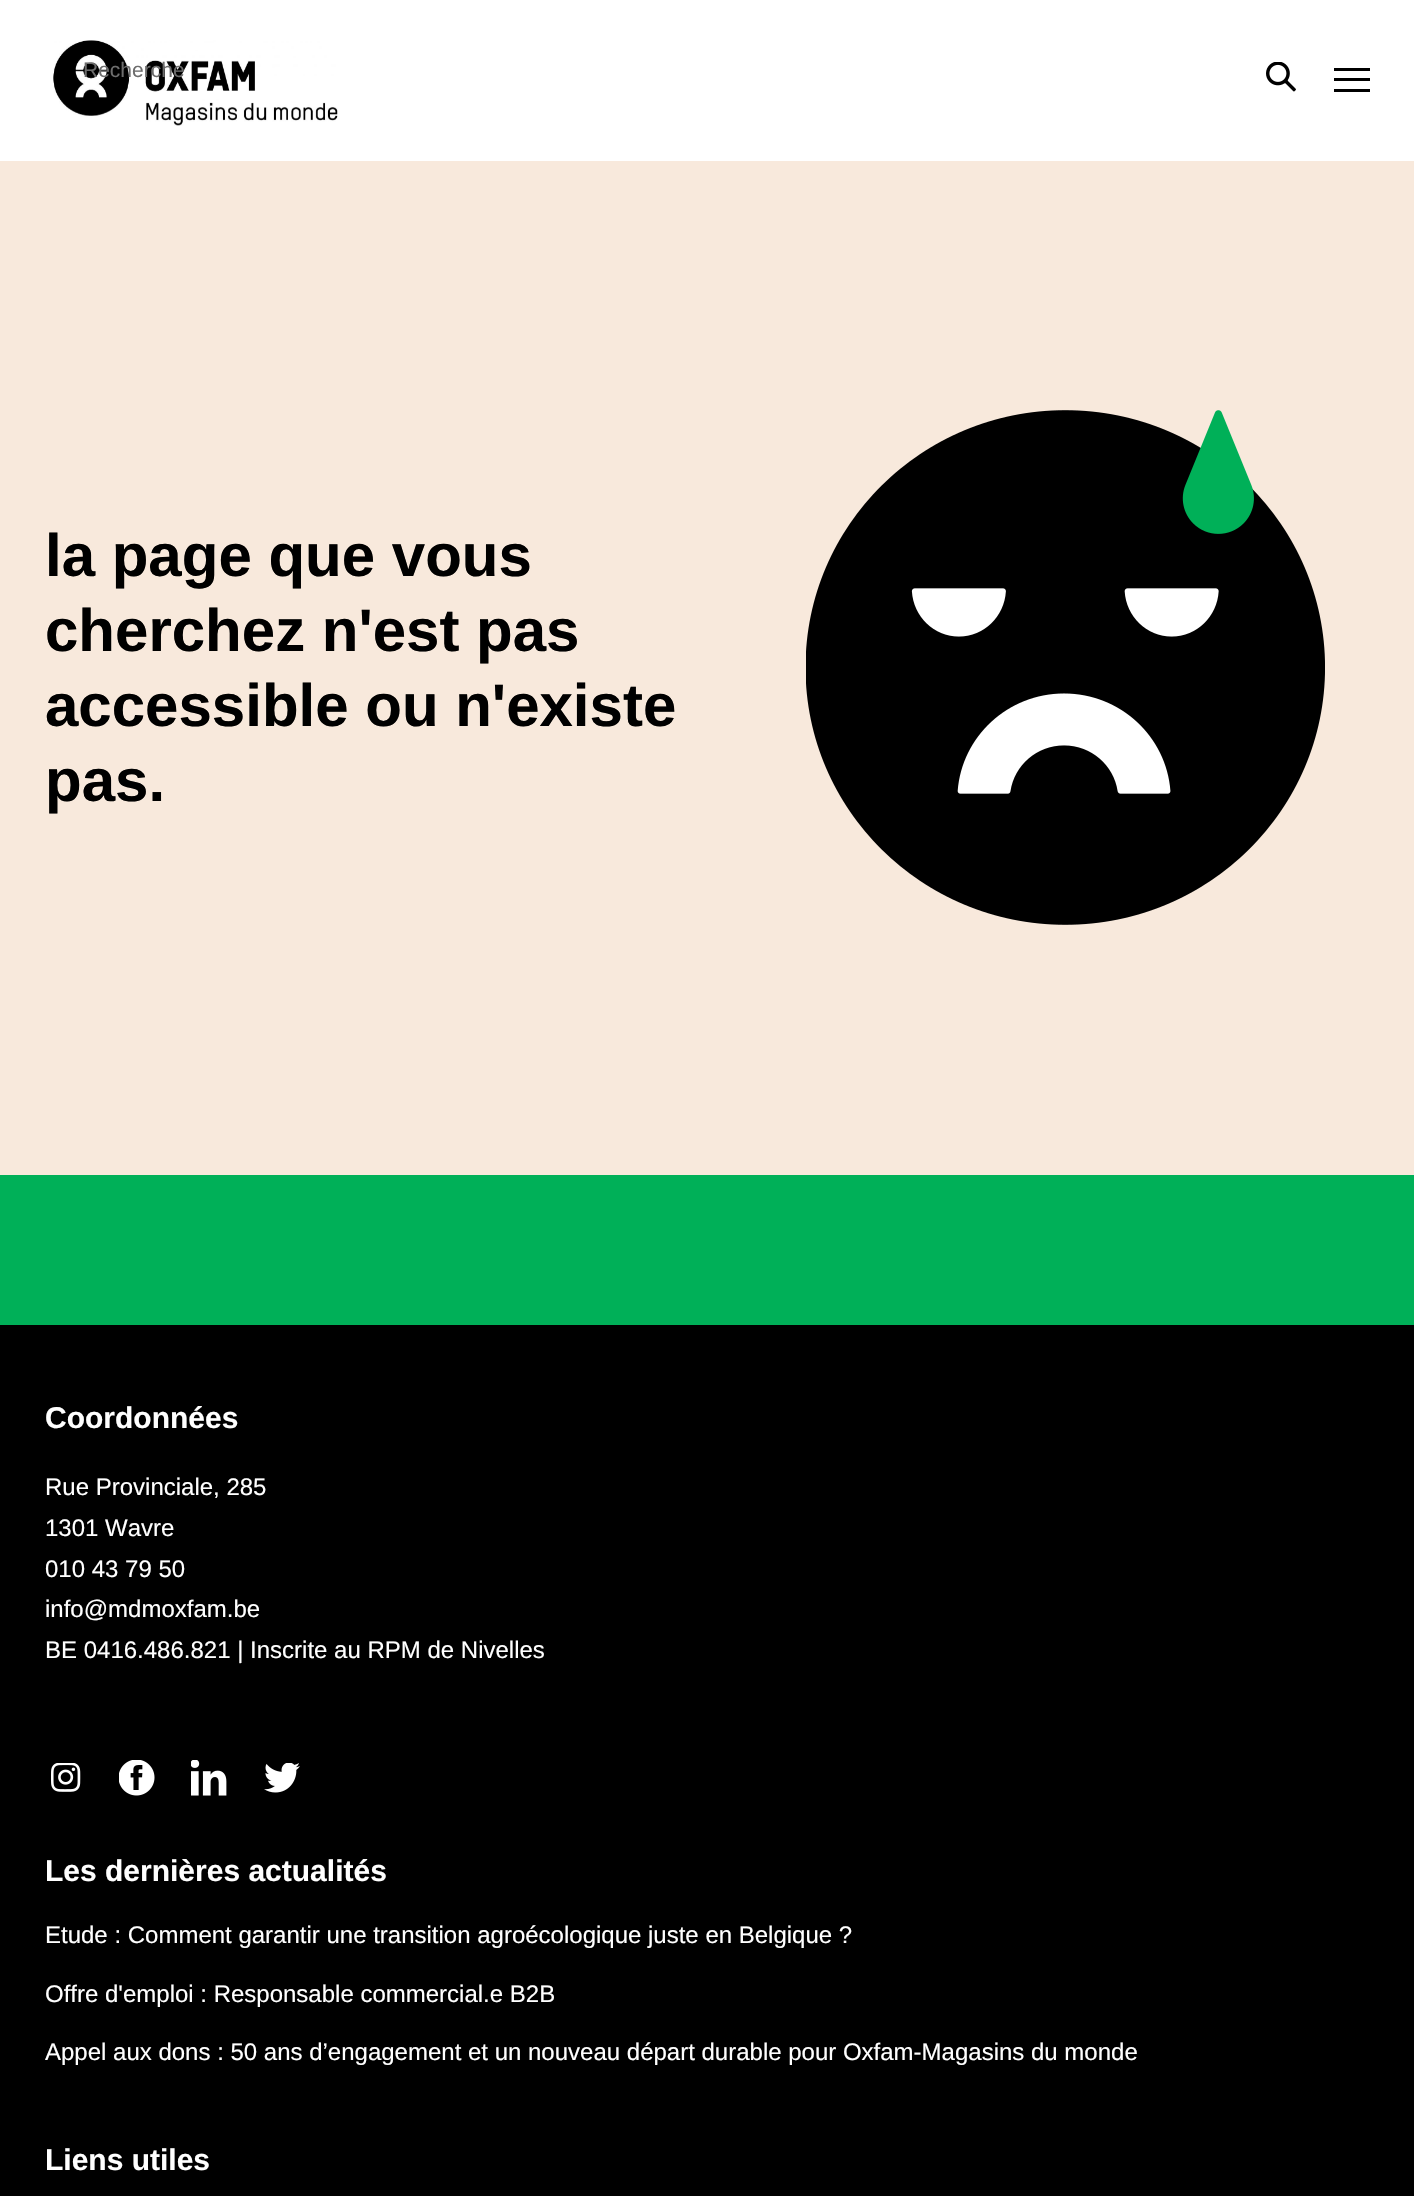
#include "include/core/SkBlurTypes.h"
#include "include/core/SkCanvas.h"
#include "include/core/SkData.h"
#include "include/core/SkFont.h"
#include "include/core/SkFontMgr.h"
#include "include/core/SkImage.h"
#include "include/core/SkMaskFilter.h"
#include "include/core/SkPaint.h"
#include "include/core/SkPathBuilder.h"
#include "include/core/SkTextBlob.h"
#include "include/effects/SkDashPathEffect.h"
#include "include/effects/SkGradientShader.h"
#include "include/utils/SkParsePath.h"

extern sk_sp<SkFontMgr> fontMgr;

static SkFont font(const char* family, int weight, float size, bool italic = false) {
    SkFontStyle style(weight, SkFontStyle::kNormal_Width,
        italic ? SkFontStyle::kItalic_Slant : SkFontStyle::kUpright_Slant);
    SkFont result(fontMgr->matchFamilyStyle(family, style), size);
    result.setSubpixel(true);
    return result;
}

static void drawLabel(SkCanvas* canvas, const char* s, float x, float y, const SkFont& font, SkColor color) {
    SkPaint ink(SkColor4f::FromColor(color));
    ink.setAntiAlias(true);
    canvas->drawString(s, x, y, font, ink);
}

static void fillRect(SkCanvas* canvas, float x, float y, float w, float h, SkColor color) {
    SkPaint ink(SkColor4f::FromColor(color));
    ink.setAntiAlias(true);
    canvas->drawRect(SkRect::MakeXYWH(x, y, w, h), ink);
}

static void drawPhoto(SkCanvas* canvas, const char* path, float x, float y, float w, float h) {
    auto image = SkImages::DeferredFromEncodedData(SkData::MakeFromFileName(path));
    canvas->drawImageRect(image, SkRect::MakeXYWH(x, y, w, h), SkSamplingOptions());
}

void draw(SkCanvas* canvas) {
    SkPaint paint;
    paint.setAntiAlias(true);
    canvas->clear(0xFF000000);
    fillRect(canvas, 0, 0, 1414, 161, 0xFFFFFFFF);
    drawPhoto(canvas, "assets/img1.png", 53, 40, 285, 86);
    SkFont font1 = font("Liberation Sans", 400, 21);
    drawLabel(canvas, "Recherche", 83, 77, font1, 0xFF6D6D6D);
    drawPhoto(canvas, "assets/img2.png", 1266, 62, 30, 30);
    fillRect(canvas, 1334, 68, 36, 3, 0xFF000000);
    fillRect(canvas, 1334, 78, 36, 3, 0xFF000000);
    fillRect(canvas, 1334, 89, 36, 3, 0xFF000000);
    fillRect(canvas, 0, 161, 1414, 1014, 0xFFF8E9DC);
    SkFont font2 = font("Liberation Sans", 700, 60);
    drawLabel(canvas, "la page que vous", 45, 576, font2, 0xFF000000);
    drawLabel(canvas, "cherchez n'est pas", 45, 651, font2, 0xFF000000);
    drawLabel(canvas, "accessible ou n'existe", 45, 726, font2, 0xFF000000);
    drawLabel(canvas, "pas.", 45, 801, font2, 0xFF000000);
    drawPhoto(canvas, "assets/img3.png", 806, 410, 519, 515);
    fillRect(canvas, 0, 1175, 1414, 150, 0xFF00B058);
    SkFont font3 = font("Liberation Sans", 700, 30);
    drawLabel(canvas, "Coordonnées", 45, 1428, font3, 0xFFFFFFFF);
    SkFont font4 = font("Liberation Sans", 400, 24);
    drawLabel(canvas, "Rue Provinciale, 285", 45, 1495, font4, 0xFFFFFFFF);
    drawLabel(canvas, "1301 Wavre", 45, 1536, font4, 0xFFFFFFFF);
    drawLabel(canvas, "010 43 79 50", 45, 1577, font4, 0xFFFFFFFF);
    drawLabel(canvas, "info@mdmoxfam.be", 45, 1617, font4, 0xFFFFFFFF);
    drawLabel(canvas, "BE 0416.486.821 | Inscrite au RPM de Nivelles", 45, 1658, font4, 0xFFFFFFFF);
    drawPhoto(canvas, "assets/img4.png", 51, 1763, 30, 29);
    drawPhoto(canvas, "assets/img5.png", 119, 1760, 36, 36);
    drawPhoto(canvas, "assets/img6.png", 191, 1760, 36, 36);
    drawPhoto(canvas, "assets/img7.png", 264, 1763, 36, 30);
    drawLabel(canvas, "Les dernières actualités", 45, 1881, font3, 0xFFFFFFFF);
    drawLabel(canvas, "Etude : Comment garantir une transition agroécologique juste en Belgique ?", 45, 1943, font4, 0xFFFFFFFF);
    drawLabel(canvas, "Offre d'emploi : Responsable commercial.e B2B", 45, 2002, font4, 0xFFFFFFFF);
    drawLabel(canvas, "Appel aux dons : 50 ans d’engagement et un nouveau départ durable pour Oxfam-Magasins du monde", 45, 2060, font4, 0xFFFFFFFF);
    drawLabel(canvas, "Liens utiles", 45, 2170, font3, 0xFFFFFFFF);
}
